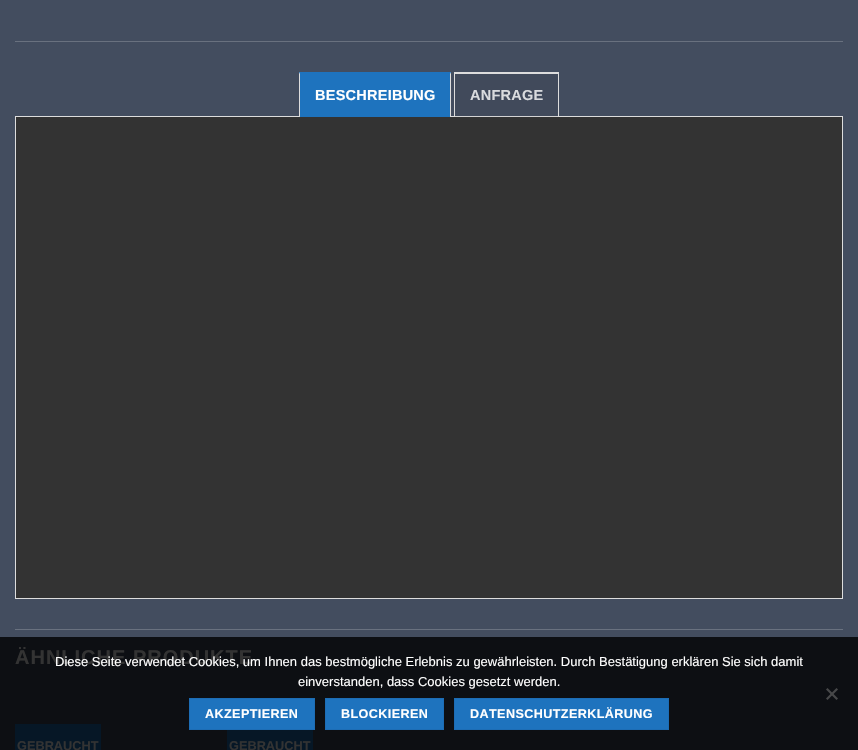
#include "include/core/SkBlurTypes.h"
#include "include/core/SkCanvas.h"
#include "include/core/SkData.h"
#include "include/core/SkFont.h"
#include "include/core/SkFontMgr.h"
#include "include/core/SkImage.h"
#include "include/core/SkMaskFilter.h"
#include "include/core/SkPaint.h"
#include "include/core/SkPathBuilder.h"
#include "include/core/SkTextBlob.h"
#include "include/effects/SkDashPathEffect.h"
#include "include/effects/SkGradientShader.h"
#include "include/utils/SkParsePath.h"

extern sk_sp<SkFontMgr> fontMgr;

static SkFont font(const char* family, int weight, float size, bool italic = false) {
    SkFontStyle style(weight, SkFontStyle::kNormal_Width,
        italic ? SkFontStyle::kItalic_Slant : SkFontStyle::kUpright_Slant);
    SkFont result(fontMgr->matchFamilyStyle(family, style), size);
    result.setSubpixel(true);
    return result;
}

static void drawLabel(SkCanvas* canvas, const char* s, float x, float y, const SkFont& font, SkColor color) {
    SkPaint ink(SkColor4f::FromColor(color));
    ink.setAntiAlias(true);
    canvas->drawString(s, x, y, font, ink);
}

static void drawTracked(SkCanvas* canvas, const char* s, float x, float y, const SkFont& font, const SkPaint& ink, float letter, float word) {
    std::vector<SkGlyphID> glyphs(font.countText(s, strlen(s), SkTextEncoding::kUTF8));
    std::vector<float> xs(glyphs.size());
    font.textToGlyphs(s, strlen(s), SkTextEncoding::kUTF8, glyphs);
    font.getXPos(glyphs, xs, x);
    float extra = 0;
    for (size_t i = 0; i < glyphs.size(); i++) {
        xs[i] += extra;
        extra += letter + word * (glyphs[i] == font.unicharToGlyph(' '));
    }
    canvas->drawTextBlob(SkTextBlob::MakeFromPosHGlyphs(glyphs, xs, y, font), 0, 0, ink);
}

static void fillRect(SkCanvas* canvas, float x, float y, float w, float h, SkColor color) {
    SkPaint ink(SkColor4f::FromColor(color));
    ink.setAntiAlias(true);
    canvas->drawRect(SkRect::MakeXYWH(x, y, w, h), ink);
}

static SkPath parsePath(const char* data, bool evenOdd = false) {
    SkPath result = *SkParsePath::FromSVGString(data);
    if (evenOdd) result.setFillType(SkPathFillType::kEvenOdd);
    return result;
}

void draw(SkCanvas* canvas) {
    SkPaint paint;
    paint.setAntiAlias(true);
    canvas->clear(0xFF434D5F);
    fillRect(canvas, 0, 637, 858, 113, 0xFF0D0F13);
    fillRect(canvas, 15, 41, 828, 1, 0xFF69717F);
    paint.setColor(0xFF333333);
    canvas->drawRect(SkRect::MakeXYWH(15.5f, 116.5f, 827, 482), paint);
    paint.setStroke(true);
    paint.setStrokeWidth(1);
    paint.setColor(0xFFDDDDDD);
    canvas->drawRect(SkRect::MakeXYWH(15.5f, 116.5f, 827, 482), paint);
    fillRect(canvas, 299, 72, 152, 45, 0xFF1E73BE);
    paint.setStroke(false);
    canvas->drawPath(parsePath("M451 72V117H450V74Z"), paint);
    canvas->drawPath(parsePath("M299 117V72L300 74V117Z"), paint);
    SkFont font1 = font("Liberation Sans", 700, 14.5f);
    paint.setColor(0xFFFFFFFF);
    drawTracked(canvas, "BESCHREIBUNG", 315, 100, font1, paint, 0.25f, 0);
    fillRect(canvas, 455, 74, 103, 43, 0x0A000000);
    fillRect(canvas, 454, 72, 105, 2, 0xFFDDDDDD);
    fillRect(canvas, 558, 72, 1, 45, 0xFFDDDDDD);
    fillRect(canvas, 454, 72, 1, 45, 0xFFDDDDDD);
    paint.setColor(0xFFD9DBDE);
    drawTracked(canvas, "ANFRAGE", 470, 100, font1, paint, 0.25f, 0);
    fillRect(canvas, 15, 629, 828, 1, 0xFF69717F);
    SkFont font2 = font("Liberation Sans", 700, 20);
    paint.setColor(0xFF333333);
    drawTracked(canvas, "ÄHNLICHE PRODUKTE", 15, 664, font2, paint, 1, 0);
    fillRect(canvas, 15, 724, 86, 26, 0xFF061726);
    SkFont font3 = font("Liberation Sans", 700, 12.75f);
    drawLabel(canvas, "GEBRAUCHT", 17, 750, font3, 0xFF333333);
    fillRect(canvas, 227, 730, 86, 20, 0xFF061726);
    drawLabel(canvas, "GEBRAUCHT", 229, 750, font3, 0xFF333333);
    SkFont font4 = font("Liberation Sans", 400, 13);
    drawLabel(canvas, "Diese Seite verwendet Cookies, um Ihnen das bestmögliche Erlebnis zu gewährleisten. Durch Bestätigung erklären Sie sich damit", 55, 666, font4, 0xFFFFFFFF);
    drawLabel(canvas, "einverstanden, dass Cookies gesetzt werden.", 298, 686, font4, 0xFFFFFFFF);
    paint.setColor(0xFF474849);
    canvas->drawPath(parsePath("M836.5 688L838 689.5L827.5 700L826 698.5Z"), paint);
    canvas->drawPath(parsePath("M826 689.5L827.5 688L838 698.5L836.5 700Z"), paint);
    paint.setColor(0xFF1E73BE);
    canvas->drawRect(SkRect::MakeXYWH(189.5f, 698.5f, 125, 31), paint);
    paint.setStroke(true);
    paint.setColor(0xFF1D6DB5);
    canvas->drawRect(SkRect::MakeXYWH(189.5f, 698.5f, 125, 31), paint);
    SkFont font5 = font("Liberation Sans", 700, 12.6f);
    paint.setStroke(false);
    paint.setColor(0xFFFFFFFF);
    drawTracked(canvas, "AKZEPTIEREN", 205, 718, font5, paint, 0.4f, 0);
    paint.setColor(0xFF1E73BE);
    canvas->drawRect(SkRect::MakeXYWH(325.5f, 698.5f, 118, 31), paint);
    paint.setStroke(true);
    paint.setColor(0xFF1D6DB5);
    canvas->drawRect(SkRect::MakeXYWH(325.5f, 698.5f, 118, 31), paint);
    paint.setStroke(false);
    paint.setColor(0xFFFFFFFF);
    drawTracked(canvas, "BLOCKIEREN", 341, 718, font5, paint, 0.4f, 0);
    paint.setColor(0xFF1E73BE);
    canvas->drawRect(SkRect::MakeXYWH(454.5f, 698.5f, 214, 31), paint);
    paint.setStroke(true);
    paint.setColor(0xFF1D6DB5);
    canvas->drawRect(SkRect::MakeXYWH(454.5f, 698.5f, 214, 31), paint);
    paint.setStroke(false);
    paint.setColor(0xFFFFFFFF);
    drawTracked(canvas, "DATENSCHUTZERKLÄRUNG", 470, 718, font5, paint, 0.4f, 0);
}
